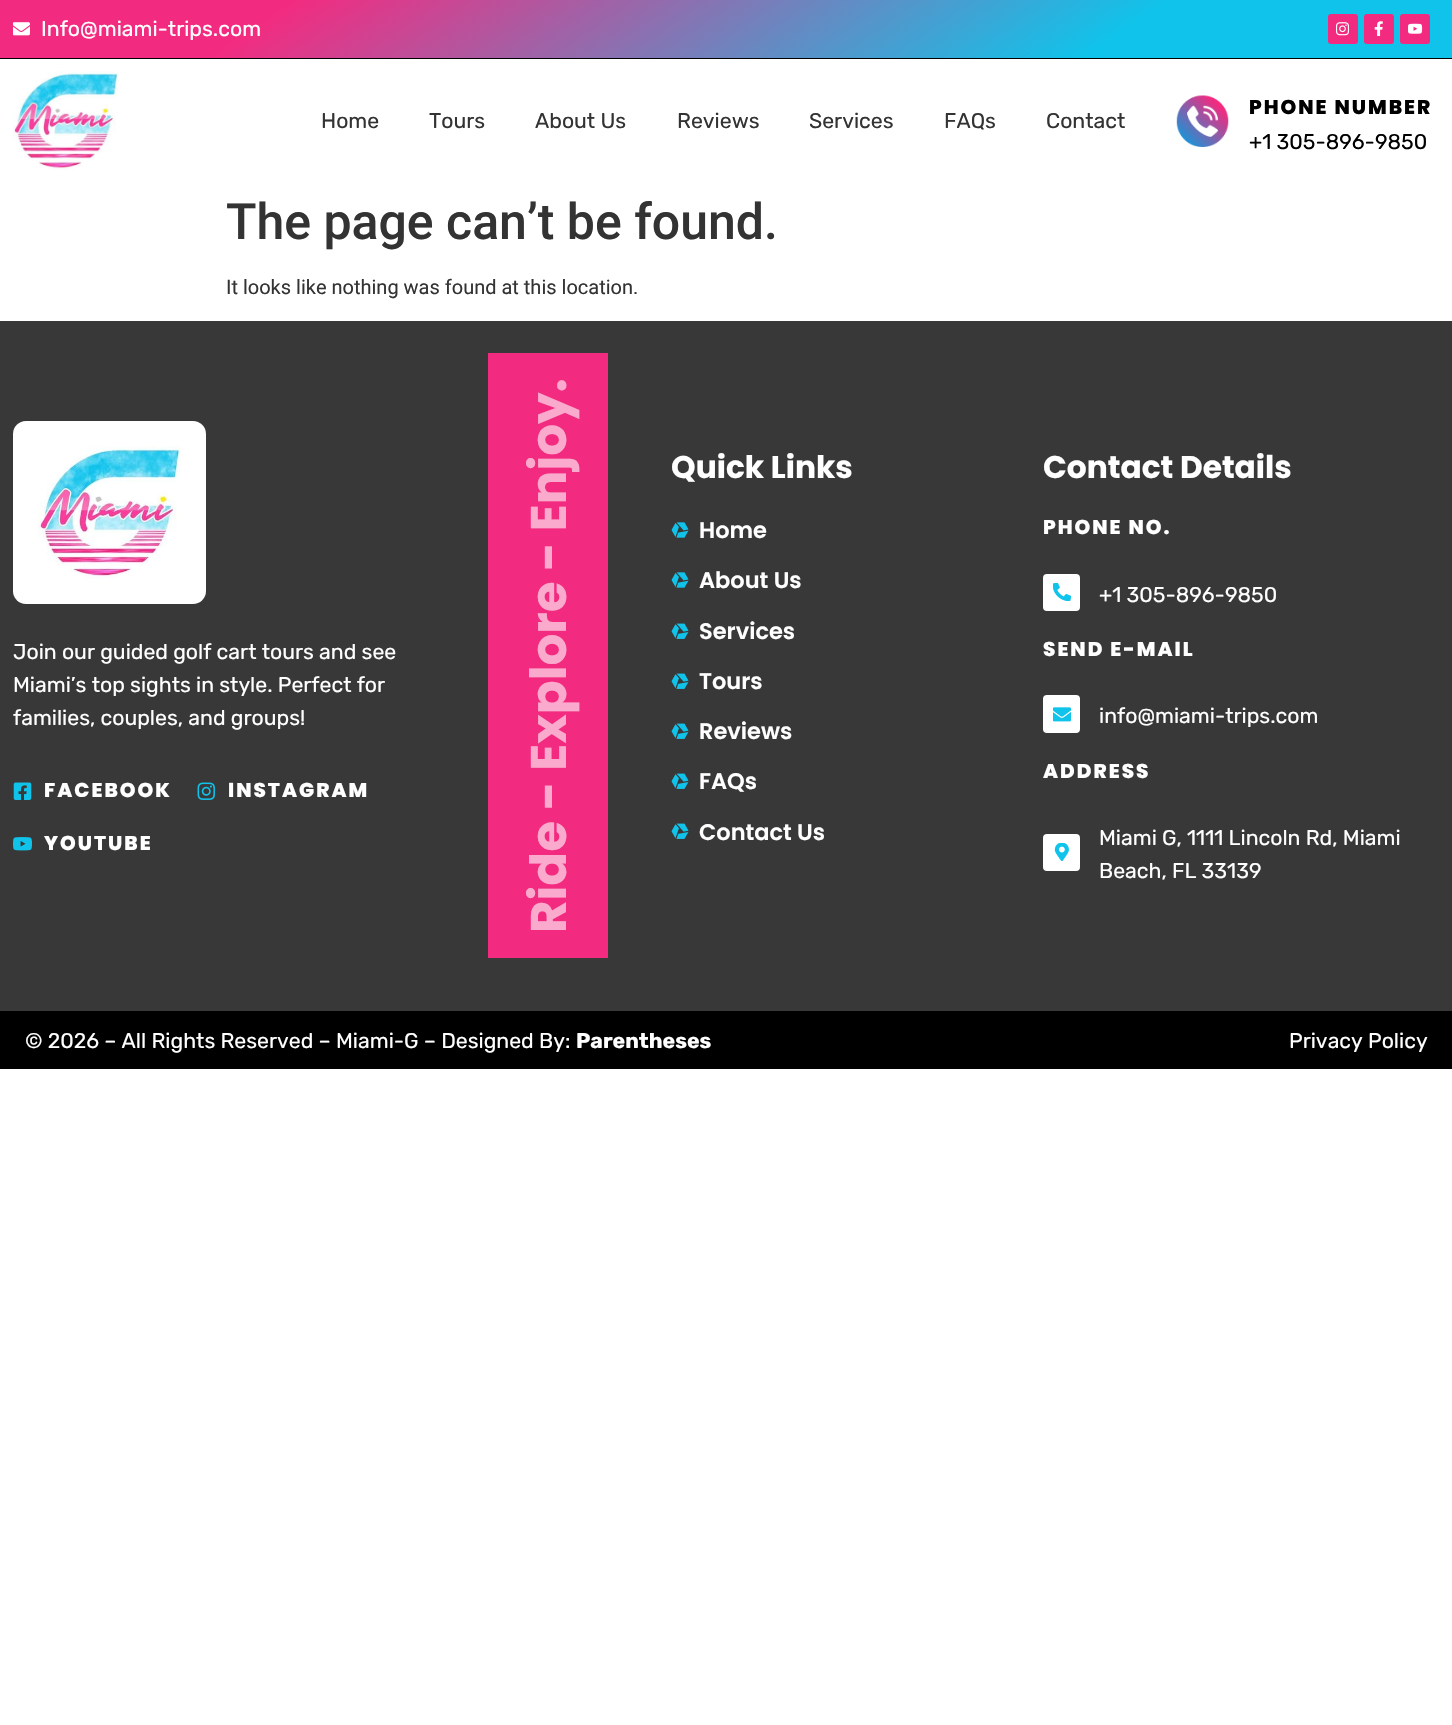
#include "include/core/SkBlurTypes.h"
#include "include/core/SkCanvas.h"
#include "include/core/SkData.h"
#include "include/core/SkFont.h"
#include "include/core/SkFontMgr.h"
#include "include/core/SkImage.h"
#include "include/core/SkMaskFilter.h"
#include "include/core/SkPaint.h"
#include "include/core/SkPathBuilder.h"
#include "include/core/SkTextBlob.h"
#include "include/effects/SkDashPathEffect.h"
#include "include/effects/SkGradientShader.h"
#include "include/utils/SkParsePath.h"

extern sk_sp<SkFontMgr> fontMgr;

static SkFont font(const char* family, int weight, float size, bool italic = false) {
    SkFontStyle style(weight, SkFontStyle::kNormal_Width,
        italic ? SkFontStyle::kItalic_Slant : SkFontStyle::kUpright_Slant);
    SkFont result(fontMgr->matchFamilyStyle(family, style), size);
    result.setSubpixel(true);
    return result;
}

static void drawLabel(SkCanvas* canvas, const char* s, float x, float y, const SkFont& font, SkColor color) {
    SkPaint ink(SkColor4f::FromColor(color));
    ink.setAntiAlias(true);
    canvas->drawString(s, x, y, font, ink);
}

static void drawTracked(SkCanvas* canvas, const char* s, float x, float y, const SkFont& font, const SkPaint& ink, float letter, float word) {
    std::vector<SkGlyphID> glyphs(font.countText(s, strlen(s), SkTextEncoding::kUTF8));
    std::vector<float> xs(glyphs.size());
    font.textToGlyphs(s, strlen(s), SkTextEncoding::kUTF8, glyphs);
    font.getXPos(glyphs, xs, x);
    float extra = 0;
    for (size_t i = 0; i < glyphs.size(); i++) {
        xs[i] += extra;
        extra += letter + word * (glyphs[i] == font.unicharToGlyph(' '));
    }
    canvas->drawTextBlob(SkTextBlob::MakeFromPosHGlyphs(glyphs, xs, y, font), 0, 0, ink);
}

static void fillRect(SkCanvas* canvas, float x, float y, float w, float h, SkColor color) {
    SkPaint ink(SkColor4f::FromColor(color));
    ink.setAntiAlias(true);
    canvas->drawRect(SkRect::MakeXYWH(x, y, w, h), ink);
}

static void fillRRect(SkCanvas* canvas, float x, float y, float w, float h, float radius, SkColor color) {
    SkPaint ink(SkColor4f::FromColor(color));
    ink.setAntiAlias(true);
    canvas->drawRoundRect(SkRect::MakeXYWH(x, y, w, h), radius, radius, ink);
}

static void drawPhoto(SkCanvas* canvas, const char* path, float x, float y, float w, float h) {
    auto image = SkImages::DeferredFromEncodedData(SkData::MakeFromFileName(path));
    canvas->drawImageRect(image, SkRect::MakeXYWH(x, y, w, h), SkSamplingOptions());
}

void draw(SkCanvas* canvas) {
    SkPaint paint;
    paint.setAntiAlias(true);
    canvas->clear(0xFFFFFFFF);
    {
        const SkColor colors[] = {0xFFF32B80, 0xFF10C3EA};
        const float stops[] = {0.19f, 0.76f};
        const SkPoint ends[] = {{486, -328}, {967, 385}};
        paint.setShader(SkGradientShader::MakeLinear(ends, colors, stops, 2, SkTileMode::kClamp));
        paint.setAlpha(255);
    }
    canvas->drawRect(SkRect::MakeXYWH(0, 0, 1452, 58), paint);
    fillRect(canvas, 0, 58, 1452, 1, 0xFF000000);
    drawPhoto(canvas, "assets/img1.png", 13, 22, 17, 14);
    SkFont font1 = font("Rubik", 400, 21.25f);
    drawLabel(canvas, "Info@miami-trips.com", 41, 36, font1, 0xFFFFFFFF);
    fillRRect(canvas, 1328, 14, 30, 30, 3, 0xFFF32B80);
    drawPhoto(canvas, "assets/img2.png", 1336, 22, 14, 14);
    fillRRect(canvas, 1364, 14, 30, 30, 3, 0xFFF32B80);
    drawPhoto(canvas, "assets/img3.png", 1374, 21, 9, 15);
    fillRRect(canvas, 1400, 14, 30, 30, 3, 0xFFF32B80);
    drawPhoto(canvas, "assets/img4.png", 1408, 23, 15, 11);
    drawPhoto(canvas, "assets/img5.png", 12, 71, 107, 99);
    drawLabel(canvas, "Home", 321, 128, font1, 0xFF333333);
    drawLabel(canvas, "Tours", 429, 128, font1, 0xFF333333);
    drawLabel(canvas, "About Us", 535, 128, font1, 0xFF333333);
    drawLabel(canvas, "Reviews", 677, 128, font1, 0xFF333333);
    drawLabel(canvas, "Services", 809, 128, font1, 0xFF333333);
    drawLabel(canvas, "FAQs", 944, 128, font1, 0xFF333333);
    drawLabel(canvas, "Contact", 1046, 128, font1, 0xFF333333);
    drawPhoto(canvas, "assets/img6.png", 1176, 95, 53, 52);
    SkFont font2 = font("Poppins", 800, 20);
    paint.setShader(nullptr);
    paint.setColor(0xFF000000);
    drawTracked(canvas, "PHONE NUMBER", 1249, 114, font2, paint, 2, 0);
    drawLabel(canvas, "+1 305-896-9850", 1249, 149, font1, 0xFF000000);
    SkFont font3 = font("Roboto", 500, 50);
    drawLabel(canvas, "The page can’t be found.", 226, 239, font3, 0xFF333333);
    SkFont font4 = font("Roboto", 400, 20);
    drawLabel(canvas, "It looks like nothing was found at this location.", 226, 294, font4, 0xFF333333);
    fillRect(canvas, 0, 321, 1452, 690, 0xFF383838);
    fillRRect(canvas, 13, 421, 193, 183, 13, 0xFFFFFFFF);
    drawPhoto(canvas, "assets/img7.png", 37, 446, 144, 133);
    drawLabel(canvas, "Join our guided golf cart tours and see", 13, 659, font1, 0xFFFFFFFF);
    drawLabel(canvas, "Miami’s top sights in style. Perfect for", 13, 692, font1, 0xFFFFFFFF);
    drawLabel(canvas, "families, couples, and groups!", 13, 725, font1, 0xFFFFFFFF);
    drawPhoto(canvas, "assets/img8.png", 13, 782, 19, 18);
    paint.setColor(0xFFFFFFFF);
    drawTracked(canvas, "FACEBOOK", 44, 797, font2, paint, 2, 0);
    drawPhoto(canvas, "assets/img9.png", 197, 782, 18, 18);
    drawTracked(canvas, "INSTAGRAM", 228, 797, font2, paint, 2, 0);
    drawPhoto(canvas, "assets/img10.png", 13, 837, 19, 14);
    drawTracked(canvas, "YOUTUBE", 44, 850, font2, paint, 2, 0);
    fillRect(canvas, 488, 353, 120, 605, 0xFFF32B80);
    SkFont font5 = font("Poppins", 700, 50);
    canvas->save();
    canvas->rotate(-90, 566, 933);
    drawLabel(canvas, "Ride - Explore - Enjoy.", 566, 933, font5, 0xFFFAAACC);
    canvas->restore();
    SkFont font6 = font("Poppins", 700, 31.25f);
    drawLabel(canvas, "Quick Links", 671, 478, font6, 0xFFFFFFFF);
    drawPhoto(canvas, "assets/img11.png", 671, 522, 18, 16);
    SkFont font7 = font("Poppins", 600, 22.5f);
    drawLabel(canvas, "Home", 699, 538, font7, 0xFFFFFFFF);
    drawPhoto(canvas, "assets/img11.png", 671, 572, 18, 16);
    drawLabel(canvas, "About Us", 699, 588, font7, 0xFFFFFFFF);
    drawPhoto(canvas, "assets/img12.png", 671, 623, 18, 16);
    drawLabel(canvas, "Services", 699, 639, font7, 0xFFFFFFFF);
    drawPhoto(canvas, "assets/img12.png", 671, 673, 18, 16);
    drawLabel(canvas, "Tours", 699, 689, font7, 0xFFFFFFFF);
    drawPhoto(canvas, "assets/img12.png", 671, 723, 18, 16);
    drawLabel(canvas, "Reviews", 699, 739, font7, 0xFFFFFFFF);
    drawPhoto(canvas, "assets/img12.png", 671, 773, 18, 16);
    drawLabel(canvas, "FAQs", 699, 789, font7, 0xFFFFFFFF);
    drawPhoto(canvas, "assets/img12.png", 671, 823, 18, 16);
    drawLabel(canvas, "Contact Us", 699, 840, font7, 0xFFFFFFFF);
    drawLabel(canvas, "Contact Details", 1043, 478, font6, 0xFFFFFFFF);
    drawTracked(canvas, "PHONE NO.", 1043, 534, font2, paint, 2, 0);
    fillRRect(canvas, 1043, 574, 37, 37, 4, 0xFFFFFFFF);
    drawPhoto(canvas, "assets/img13.png", 1053, 583, 18, 18);
    drawLabel(canvas, "+1 305-896-9850", 1099, 602, font1, 0xFFFFFFFF);
    drawTracked(canvas, "SEND E-MAIL", 1043, 656, font2, paint, 2, 0);
    fillRRect(canvas, 1043, 695, 37, 38, 4, 0xFFFFFFFF);
    drawPhoto(canvas, "assets/img14.png", 1053, 707, 18, 15);
    drawLabel(canvas, "info@miami-trips.com", 1099, 723, font1, 0xFFFFFFFF);
    drawTracked(canvas, "ADDRESS", 1043, 778, font2, paint, 2, 0);
    fillRRect(canvas, 1043, 834, 37, 37, 4, 0xFFFFFFFF);
    drawPhoto(canvas, "assets/img15.png", 1054, 843, 15, 18);
    drawLabel(canvas, "Miami G, 1111 Lincoln Rd, Miami", 1099, 845, font1, 0xFFFFFFFF);
    drawLabel(canvas, "Beach, FL 33139", 1099, 878, font1, 0xFFFFFFFF);
    fillRect(canvas, 0, 1011, 1452, 58, 0xFF000000);
    drawLabel(canvas, "© 2026 – All Rights Reserved – Miami-G – Designed By:", 25, 1048, font1, 0xFFFFFFFF);
    SkFont font8 = font("Rubik", 700, 21.25f);
    drawLabel(canvas, "Parentheses", 576, 1048, font8, 0xFFFFFFFF);
    drawLabel(canvas, "Privacy Policy", 1289, 1048, font1, 0xFFFFFFFF);
}
